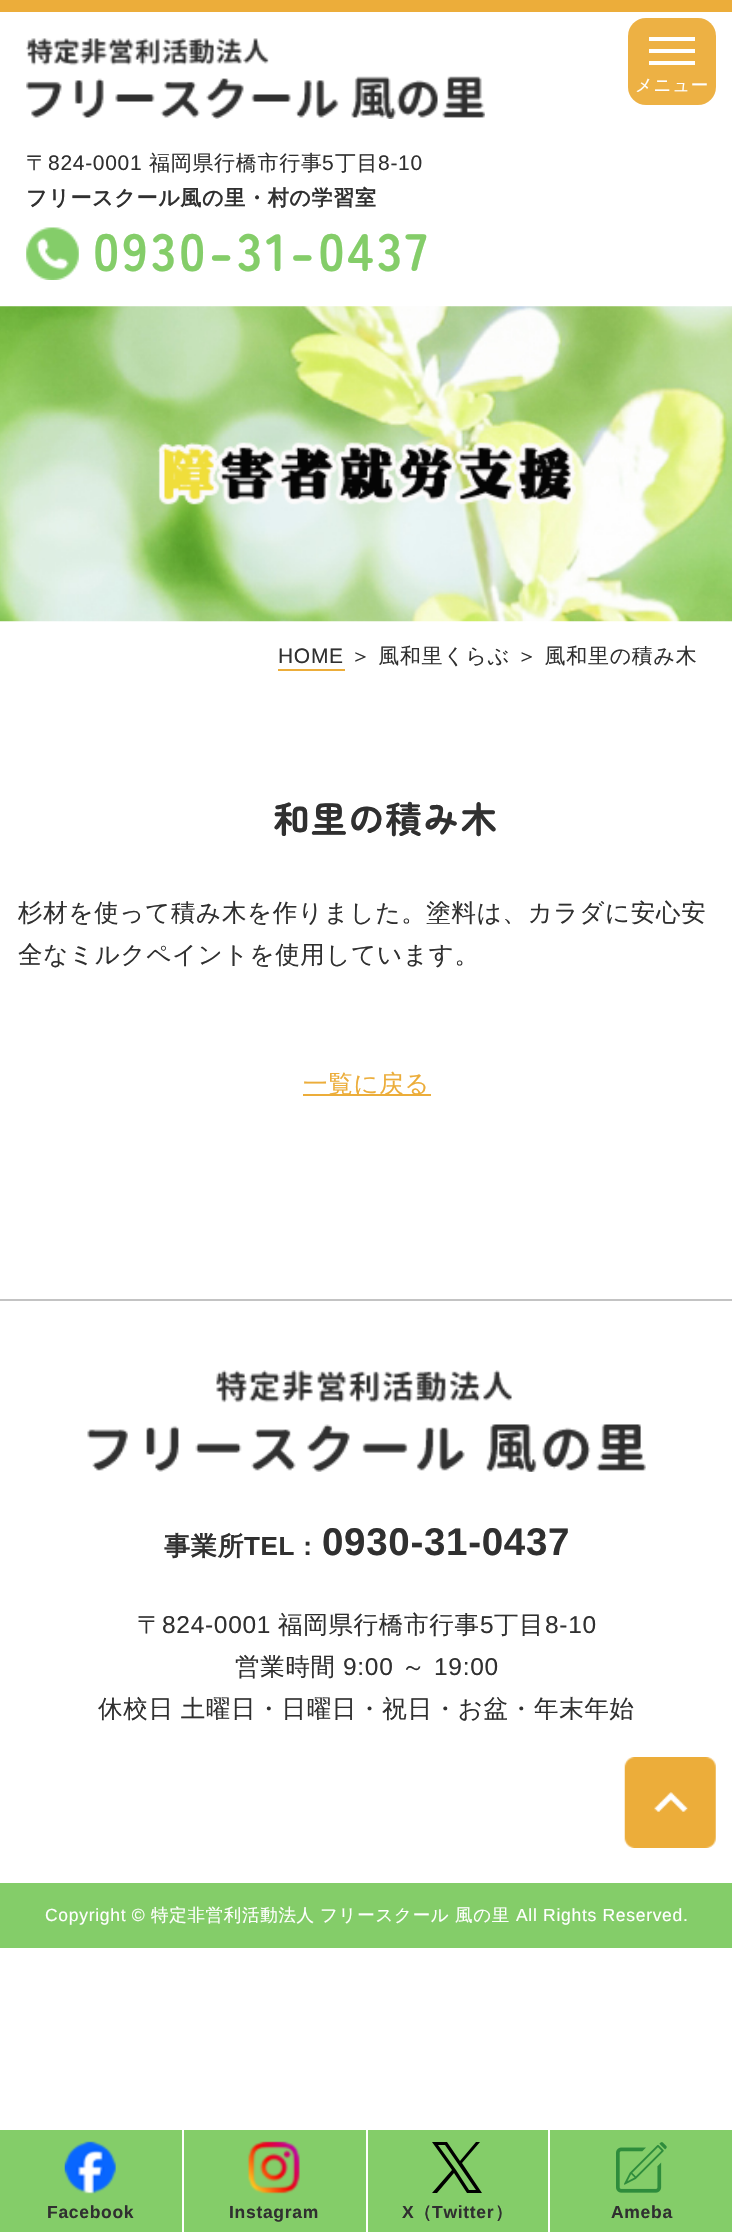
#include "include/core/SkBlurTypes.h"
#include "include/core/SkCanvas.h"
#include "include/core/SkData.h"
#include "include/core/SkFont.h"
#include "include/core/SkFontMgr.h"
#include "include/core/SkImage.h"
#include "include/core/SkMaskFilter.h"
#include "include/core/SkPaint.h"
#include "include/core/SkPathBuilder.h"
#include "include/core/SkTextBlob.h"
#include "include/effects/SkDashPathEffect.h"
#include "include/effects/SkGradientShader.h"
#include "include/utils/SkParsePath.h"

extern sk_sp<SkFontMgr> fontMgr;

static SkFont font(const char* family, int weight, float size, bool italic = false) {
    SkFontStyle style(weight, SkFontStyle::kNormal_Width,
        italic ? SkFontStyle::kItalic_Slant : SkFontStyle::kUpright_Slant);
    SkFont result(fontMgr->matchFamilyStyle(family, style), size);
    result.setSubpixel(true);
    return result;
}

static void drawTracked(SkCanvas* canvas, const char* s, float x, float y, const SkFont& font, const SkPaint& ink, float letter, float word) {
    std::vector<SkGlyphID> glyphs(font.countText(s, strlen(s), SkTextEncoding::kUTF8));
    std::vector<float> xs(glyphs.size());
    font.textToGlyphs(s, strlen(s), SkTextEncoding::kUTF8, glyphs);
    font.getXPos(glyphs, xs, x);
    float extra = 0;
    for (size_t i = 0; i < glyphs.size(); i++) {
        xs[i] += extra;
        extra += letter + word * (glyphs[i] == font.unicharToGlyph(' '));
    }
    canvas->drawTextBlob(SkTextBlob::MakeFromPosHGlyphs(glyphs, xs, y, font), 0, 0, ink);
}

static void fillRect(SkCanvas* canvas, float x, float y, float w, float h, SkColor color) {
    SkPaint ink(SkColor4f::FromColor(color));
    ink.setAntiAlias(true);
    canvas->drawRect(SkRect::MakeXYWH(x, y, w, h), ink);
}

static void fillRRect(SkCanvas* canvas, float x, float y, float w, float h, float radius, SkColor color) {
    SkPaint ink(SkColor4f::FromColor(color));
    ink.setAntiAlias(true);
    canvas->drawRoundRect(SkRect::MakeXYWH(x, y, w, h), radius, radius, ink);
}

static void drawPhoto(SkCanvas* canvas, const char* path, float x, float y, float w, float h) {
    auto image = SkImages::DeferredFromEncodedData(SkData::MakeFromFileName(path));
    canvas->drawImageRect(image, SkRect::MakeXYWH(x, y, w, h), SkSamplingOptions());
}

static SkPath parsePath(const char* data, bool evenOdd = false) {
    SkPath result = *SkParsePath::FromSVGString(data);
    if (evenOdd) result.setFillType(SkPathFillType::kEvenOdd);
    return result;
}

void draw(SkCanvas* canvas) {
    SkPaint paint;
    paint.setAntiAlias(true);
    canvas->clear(0xFFFFFFFF);
    fillRRect(canvas, 628, 18, 88, 87, 18, 0xFFEDB144);
    fillRect(canvas, 649, 37, 46, 4, 0xFFFFFFFF);
    fillRect(canvas, 649, 49, 46, 4, 0xFFFFFFFF);
    fillRect(canvas, 649, 61, 46, 4, 0xFFFFFFFF);
    SkFont font1 = font("WenQuanYi Zen Hei", 500, 17.5f);
    paint.setColor(0xFFFFFFFF);
    drawTracked(canvas, "メニュー", 635, 91, font1, paint, 0.7f, 0);
    fillRect(canvas, 0, 0, 732, 12, 0xFFECAD3A);
    drawPhoto(canvas, "assets/img1.png", 26, 38, 459, 81);
    SkFont font2 = font("WenQuanYi Zen Hei", 500, 21);
    paint.setColor(0xFF303030);
    drawTracked(canvas, "〒", 26, 170, font2, paint, 0.7f, 0);
    SkFont font3 = font("Liberation Sans", 400, 21);
    drawTracked(canvas, "824-0001", 48, 170, font3, paint, 0.7f, 0);
    drawTracked(canvas, "福岡県行橋市行事", 149, 170, font2, paint, 0.7f, 0);
    drawTracked(canvas, "5", 322, 170, font3, paint, 0.7f, 0);
    drawTracked(canvas, "丁目", 335, 170, font2, paint, 0.7f, 0);
    drawTracked(canvas, "8-10", 378, 170, font3, paint, 0.7f, 0);
    SkFont font4 = font("WenQuanYi Zen Hei", 700, 21);
    drawTracked(canvas, "フリースクール風の里・村の学習室", 26, 205, font4, paint, 0.7f, 0);
    drawPhoto(canvas, "assets/img2.png", 26, 227, 53, 53);
    SkFont font5 = font("Zen Maru Gothic", 700, 52.5f);
    paint.setColor(0xFF84CD69);
    drawTracked(canvas, "0930-31-0437", 93, 271, font5, paint, 3.1f, 0);
    drawPhoto(canvas, "assets/img3.png", 0, 306, 732, 316);
    drawPhoto(canvas, "assets/img4.png", 157, 442, 420, 63);
    paint.setColor(0xFF303030);
    drawTracked(canvas, "HOME", 278, 663, font3, paint, 0.7f, 0);
    fillRect(canvas, 278, 669, 67, 2, 0xFFECAD3A);
    drawTracked(canvas, "＞ 風和里くらぶ ＞ 風和里の積み木", 350, 663, font2, paint, 0.7f, -0.5f);
    SkFont font6 = font("Noto Sans", 100, 36.75f);
    paint.setColor(0xFF268CC6);
    drawTracked(canvas, "風", 236, 833, font6, paint, 0.7f, 0);
    SkFont font7 = font("Zen Maru Gothic", 700, 36.75f);
    paint.setColor(0xFF303030);
    drawTracked(canvas, "和里の積み木", 273, 833, font7, paint, 0.7f, 0);
    SkFont font8 = font("WenQuanYi Zen Hei", 500, 24.5f);
    drawTracked(canvas, "杉材を使って積み木を作りました。塗料は、カラダに安心安", 18, 921, font8, paint, 0.7f, 0);
    drawTracked(canvas, "全なミルクペイントを使用しています。", 18, 963, font8, paint, 0.7f, 0);
    fillRect(canvas, 303, 1094, 128, 2, 0xFFECAD3A);
    paint.setColor(0xFFECAD3A);
    drawTracked(canvas, "一覧に戻る", 303, 1092, font8, paint, 0.7f, 0);
    fillRect(canvas, 0, 1299, 732, 2, 0xFFC3C3C3);
    drawPhoto(canvas, "assets/img5.png", 87, 1370, 559, 102);
    SkFont font9 = font("WenQuanYi Zen Hei", 700, 26);
    paint.setColor(0xFF303030);
    drawTracked(canvas, "事業所", 164, 1555, font9, paint, 0.7f, 0);
    SkFont font10 = font("Liberation Sans", 700, 26);
    drawTracked(canvas, "TEL :", 244, 1555, font10, paint, 0.7f, 0);
    SkFont font11 = font("Liberation Sans", 700, 38.5f);
    drawTracked(canvas, "0930-31-0437", 322, 1555, font11, paint, 0.7f, 0);
    drawTracked(canvas, "〒", 137, 1633, font8, paint, 0.7f, 0);
    SkFont font12 = font("Liberation Sans", 400, 24.5f);
    drawTracked(canvas, "824-0001", 162, 1633, font12, paint, 0.7f, 0);
    drawTracked(canvas, "福岡県行橋市行事", 278, 1633, font8, paint, 0.7f, 0);
    drawTracked(canvas, "5", 480, 1633, font12, paint, 0.7f, 0);
    drawTracked(canvas, "丁目", 494, 1633, font8, paint, 0.7f, 0);
    drawTracked(canvas, "8-10", 545, 1633, font12, paint, 0.7f, 0);
    drawTracked(canvas, "営業時間", 235, 1675, font8, paint, 0.7f, 0);
    drawTracked(canvas, "9:00", 343, 1675, font12, paint, 0.7f, 0);
    drawTracked(canvas, "～", 401, 1675, font8, paint, 0.7f, 0);
    drawTracked(canvas, "19:00", 434, 1675, font12, paint, 0.7f, 0);
    drawTracked(canvas, "休校日 土曜日・日曜日・祝日・お盆・年末年始", 98, 1717, font8, paint, 0.7f, -1);
    drawPhoto(canvas, "assets/img6.png", 624, 1757, 92, 91);
    fillRect(canvas, 0, 1883, 732, 65, 0xFF84CD69);
    SkFont font13 = font("Liberation Sans", 400, 17.5f);
    paint.setColor(0xFFFFFFFF);
    drawTracked(canvas, "Copyright ©", 45, 1921, font13, paint, 0.7f, 0);
    drawTracked(canvas, "特定非営利活動法人", 151, 1921, font1, paint, 0.7f, 0);
    drawTracked(canvas, "フリースクール", 320, 1921, font1, paint, 0.7f, 0);
    drawTracked(canvas, "風の里", 455, 1921, font1, paint, 0.7f, 0);
    drawTracked(canvas, "All Rights Reserved.", 516, 1921, font13, paint, 0.7f, 0);
    fillRect(canvas, 0, 2130, 182, 102, 0xFF84CD69);
    drawPhoto(canvas, "assets/img7.png", 64, 2141, 52, 53);
    SkFont font14 = font("Liberation Sans", 700, 17.5f);
    paint.setColor(0xFF303030);
    drawTracked(canvas, "Facebook", 47, 2218, font14, paint, 0.7f, 0);
    fillRect(canvas, 184, 2130, 182, 102, 0xFF84CD69);
    drawPhoto(canvas, "assets/img8.png", 247, 2141, 53, 53);
    drawTracked(canvas, "Instagram", 229, 2218, font14, paint, 0.7f, 0);
    fillRect(canvas, 368, 2130, 180, 102, 0xFF84CD69);
    paint.setColor(0xFF000000);
    canvas->drawPath(parsePath("M462 2163L480 2142H476L460 2161L447 2142H432L452 2170L432 2193H437L454 2173L467 2193H482ZM456 2170L438 2145H445L476 2190H469Z"), paint);
    paint.setColor(0xFF303030);
    drawTracked(canvas, "X", 402, 2218, font14, paint, 0.7f, 0);
    SkFont font15 = font("WenQuanYi Zen Hei", 700, 17.5f);
    drawTracked(canvas, "（", 414, 2218, font15, paint, 0.7f, 0);
    drawTracked(canvas, "Twitter", 432, 2218, font14, paint, 0.7f, 0);
    drawTracked(canvas, "）", 495, 2218, font15, paint, 0.7f, 0);
    fillRect(canvas, 550, 2130, 182, 102, 0xFF84CD69);
    drawPhoto(canvas, "assets/img9.png", 616, 2142, 51, 51);
    drawTracked(canvas, "Ameba", 611, 2218, font14, paint, 0.7f, 0);
}
